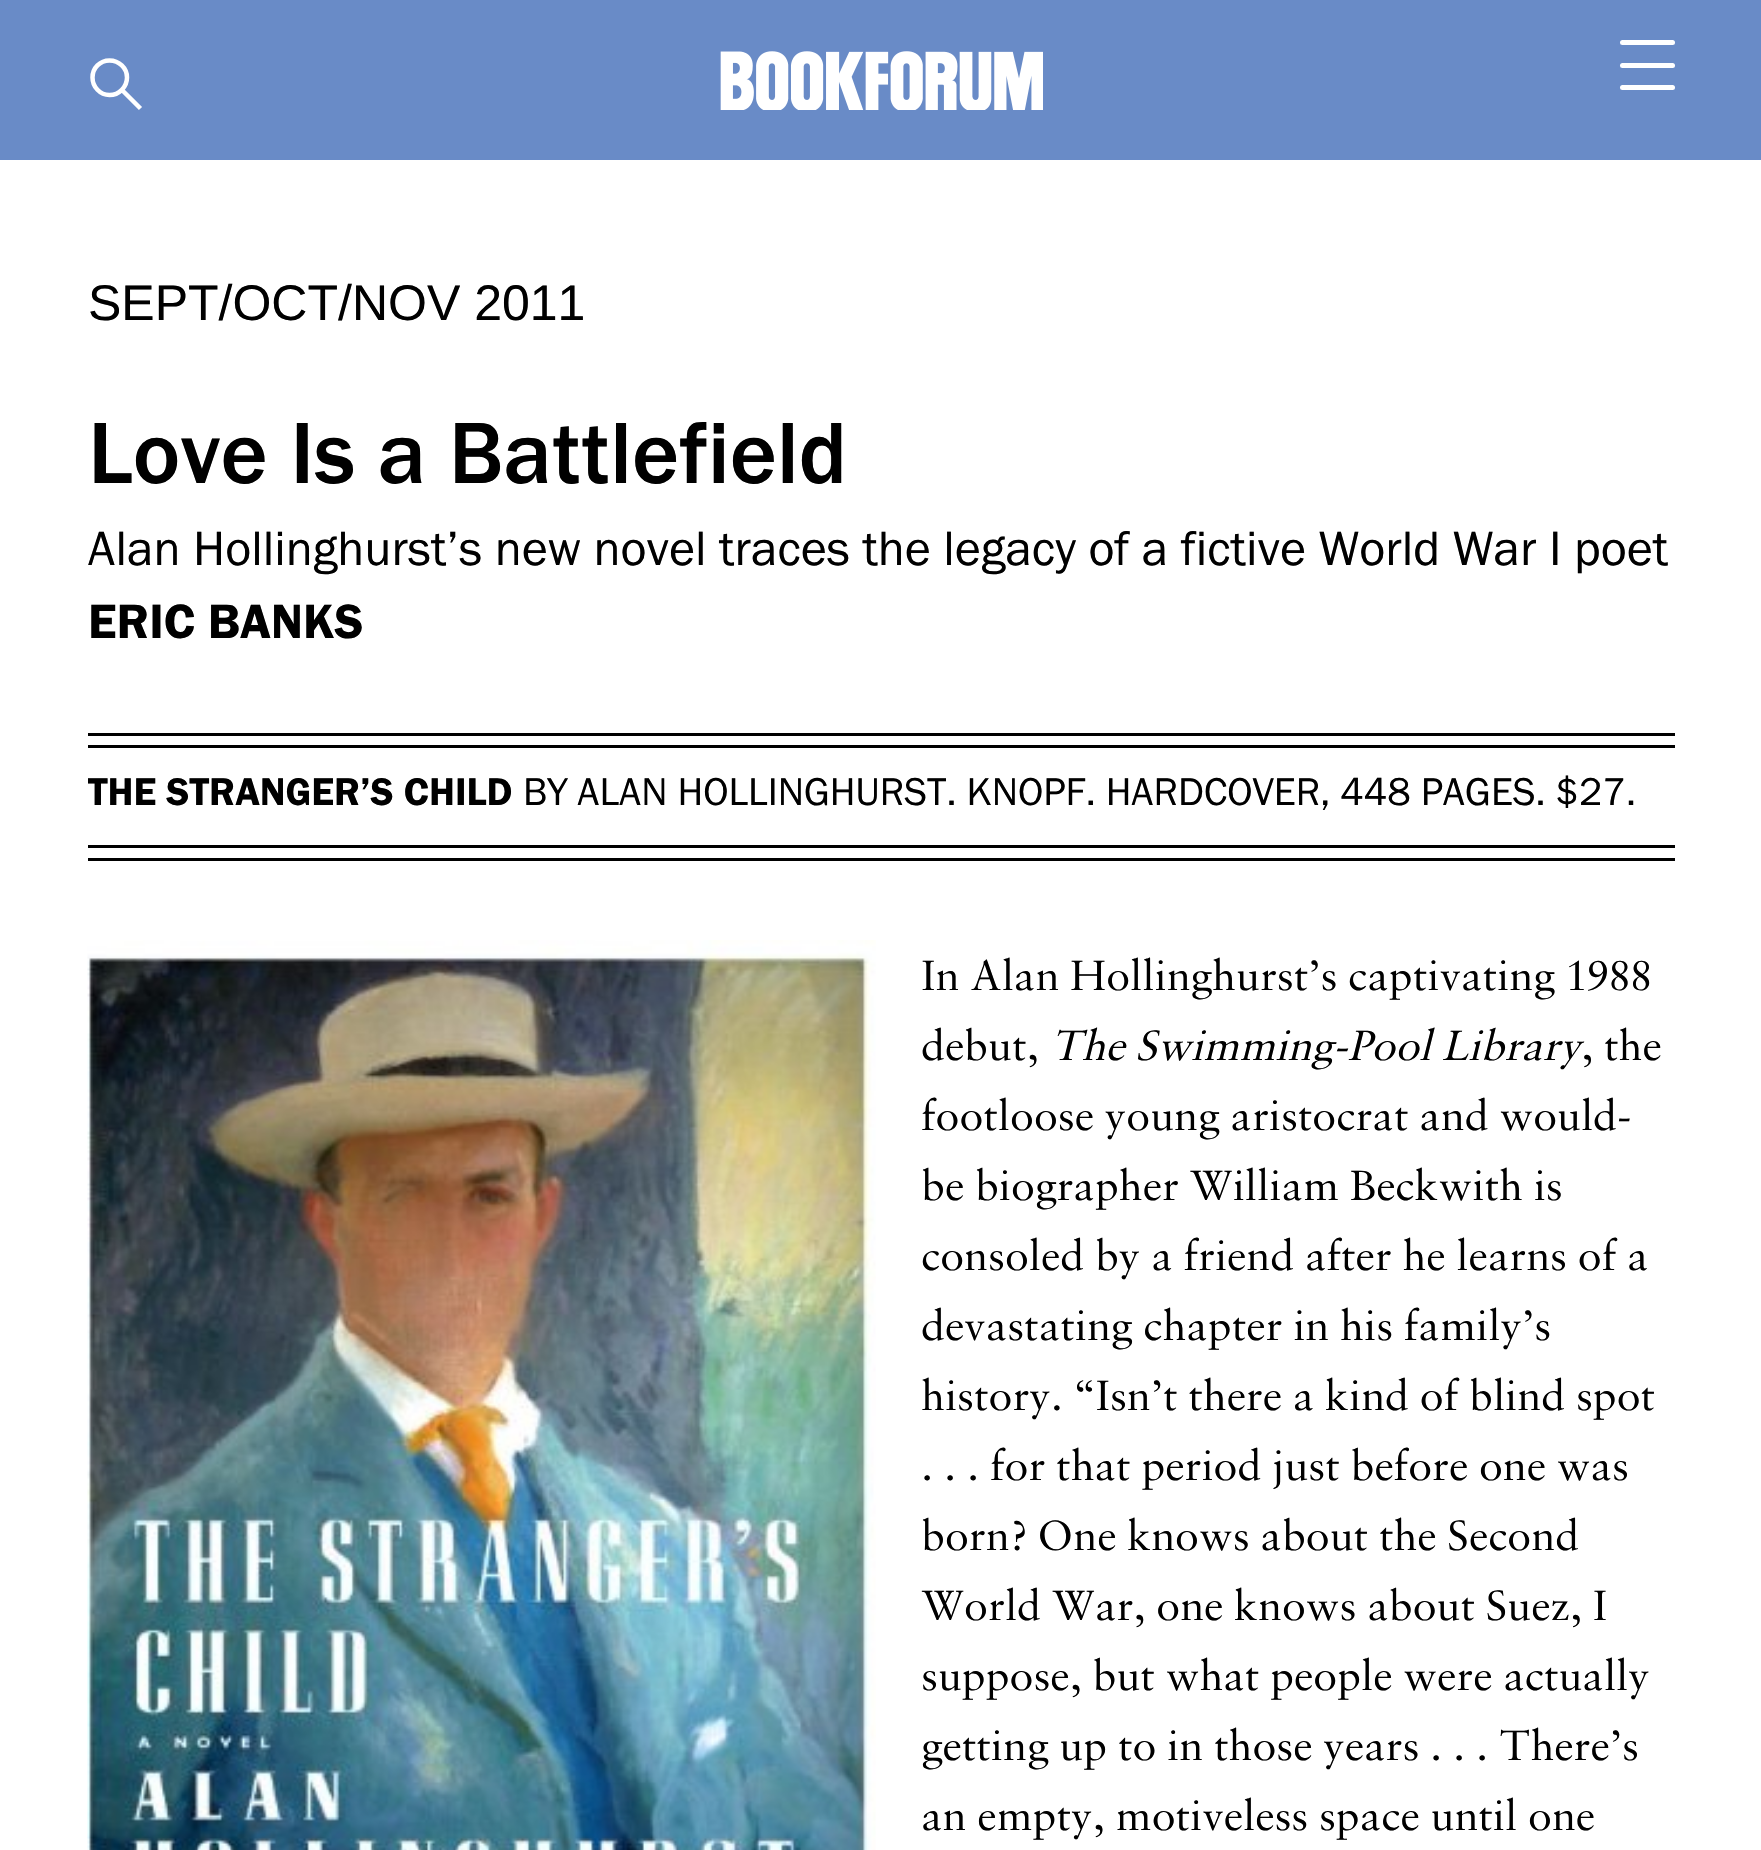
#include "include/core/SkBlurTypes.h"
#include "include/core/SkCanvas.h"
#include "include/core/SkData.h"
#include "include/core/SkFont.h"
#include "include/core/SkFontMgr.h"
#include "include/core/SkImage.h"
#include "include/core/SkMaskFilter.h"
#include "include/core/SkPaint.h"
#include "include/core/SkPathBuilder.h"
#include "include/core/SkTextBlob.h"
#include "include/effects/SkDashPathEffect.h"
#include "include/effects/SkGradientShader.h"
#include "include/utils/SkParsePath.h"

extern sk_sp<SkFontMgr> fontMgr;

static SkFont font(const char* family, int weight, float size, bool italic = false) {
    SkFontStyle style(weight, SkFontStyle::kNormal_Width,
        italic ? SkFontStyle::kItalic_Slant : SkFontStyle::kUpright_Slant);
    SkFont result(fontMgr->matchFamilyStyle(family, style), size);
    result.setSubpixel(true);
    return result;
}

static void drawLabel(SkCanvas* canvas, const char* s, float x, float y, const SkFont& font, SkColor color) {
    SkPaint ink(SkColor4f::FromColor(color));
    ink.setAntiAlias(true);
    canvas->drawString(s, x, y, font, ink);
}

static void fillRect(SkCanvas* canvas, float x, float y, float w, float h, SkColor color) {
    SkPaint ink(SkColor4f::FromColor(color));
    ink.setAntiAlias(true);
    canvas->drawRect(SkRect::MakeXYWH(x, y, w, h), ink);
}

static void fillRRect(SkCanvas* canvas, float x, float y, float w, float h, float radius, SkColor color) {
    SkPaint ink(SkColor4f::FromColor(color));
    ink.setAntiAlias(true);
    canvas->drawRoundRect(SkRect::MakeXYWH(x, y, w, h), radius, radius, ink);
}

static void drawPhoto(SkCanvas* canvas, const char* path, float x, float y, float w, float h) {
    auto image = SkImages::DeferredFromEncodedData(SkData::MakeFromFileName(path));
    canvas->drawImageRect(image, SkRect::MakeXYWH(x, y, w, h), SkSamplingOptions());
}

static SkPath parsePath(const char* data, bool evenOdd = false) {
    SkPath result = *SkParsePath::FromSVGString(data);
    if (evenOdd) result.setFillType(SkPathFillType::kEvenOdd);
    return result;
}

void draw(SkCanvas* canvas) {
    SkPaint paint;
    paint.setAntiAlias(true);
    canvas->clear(0xFFFFFFFF);
    fillRect(canvas, 0, 0, 1761, 160, 0xFF698BC7);
    paint.setStroke(true);
    paint.setStrokeWidth(4.5f);
    paint.setColor(0xFFFFFFFF);
    canvas->drawPath(parsePath("M140.5 108.5L123 91M109.5 95C100 95 92.5 87 92.5 77.5C92.5 68 100 60.5 109.5 60.5C119 60.5 127 68 127 77.5C127 87 119 95 109.5 95Z"), paint);
    fillRRect(canvas, 1620, 40, 55, 5, 2.5f, 0xFFFFFFFF);
    fillRRect(canvas, 1620, 63, 55, 5, 2.5f, 0xFFFFFFFF);
    fillRRect(canvas, 1620, 85, 55, 5, 2.5f, 0xFFFFFFFF);
    drawPhoto(canvas, "assets/img1.png", 720, 51, 323, 59);
    SkFont font1 = font("Liberation Sans", 400, 50);
    drawLabel(canvas, "SEPT/OCT/NOV 2011", 88, 320, font1, 0xFF000000);
    SkFont font2 = font("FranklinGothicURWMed", 400, 90);
    drawLabel(canvas, "Love Is a Battlefield", 88, 483, font2, 0xFF000000);
    SkFont font3 = font("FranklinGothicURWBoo", 400, 50);
    drawLabel(canvas, "Alan Hollinghurst’s new novel traces the legacy of a fictive World War I poet", 88, 565, font3, 0xFF000000);
    SkFont font4 = font("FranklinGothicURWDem", 400, 50);
    drawLabel(canvas, "ERIC BANKS", 88, 638, font4, 0xFF000000);
    fillRect(canvas, 88, 733, 1587, 3, 0xFF000000);
    fillRect(canvas, 88, 858, 1587, 3, 0xFF000000);
    fillRect(canvas, 88, 745, 1587, 3, 0xFF000000);
    SkFont font5 = font("FranklinGothicURWDem", 400, 40);
    drawLabel(canvas, "THE STRANGER’S CHILD", 88, 805, font5, 0xFF000000);
    SkFont font6 = font("FranklinGothicURWBoo", 400, 40);
    drawLabel(canvas, "BY ALAN HOLLINGHURST. KNOPF. HARDCOVER, 448 PAGES. $27.", 523, 805, font6, 0xFF000000);
    fillRect(canvas, 88, 845, 1587, 3, 0xFF000000);
    drawPhoto(canvas, "assets/img2.png", 87, 940, 789, 910);
    SkFont font7 = font("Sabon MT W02", 400, 45);
    drawLabel(canvas, "In Alan Hollinghurst’s captivating 1988", 921, 990, font7, 0xFF000000);
    drawLabel(canvas, "debut,", 921, 1060, font7, 0xFF000000);
    SkFont font8 = font("Sabon MT W02", 400, 45, true);
    drawLabel(canvas, "The Swimming-Pool Library", 1050, 1060, font8, 0xFF000000);
    drawLabel(canvas, ", the", 1581, 1060, font7, 0xFF000000);
    drawLabel(canvas, "footloose young aristocrat and would-", 921, 1130, font7, 0xFF000000);
    drawLabel(canvas, "be biographer William Beckwith is", 921, 1200, font7, 0xFF000000);
    drawLabel(canvas, "consoled by a friend after he learns of a", 921, 1270, font7, 0xFF000000);
    drawLabel(canvas, "devastating chapter in his family’s", 921, 1340, font7, 0xFF000000);
    drawLabel(canvas, "history. “Isn’t there a kind of blind spot", 921, 1410, font7, 0xFF000000);
    drawLabel(canvas, ". . . for that period just before one was", 921, 1480, font7, 0xFF000000);
    drawLabel(canvas, "born? One knows about the Second", 921, 1550, font7, 0xFF000000);
    drawLabel(canvas, "World War, one knows about Suez, I", 921, 1620, font7, 0xFF000000);
    drawLabel(canvas, "suppose, but what people were actually", 921, 1690, font7, 0xFF000000);
    drawLabel(canvas, "getting up to in those years . . . There’s", 921, 1760, font7, 0xFF000000);
    drawLabel(canvas, "an empty, motiveless space until one", 921, 1830, font7, 0xFF000000);
}
